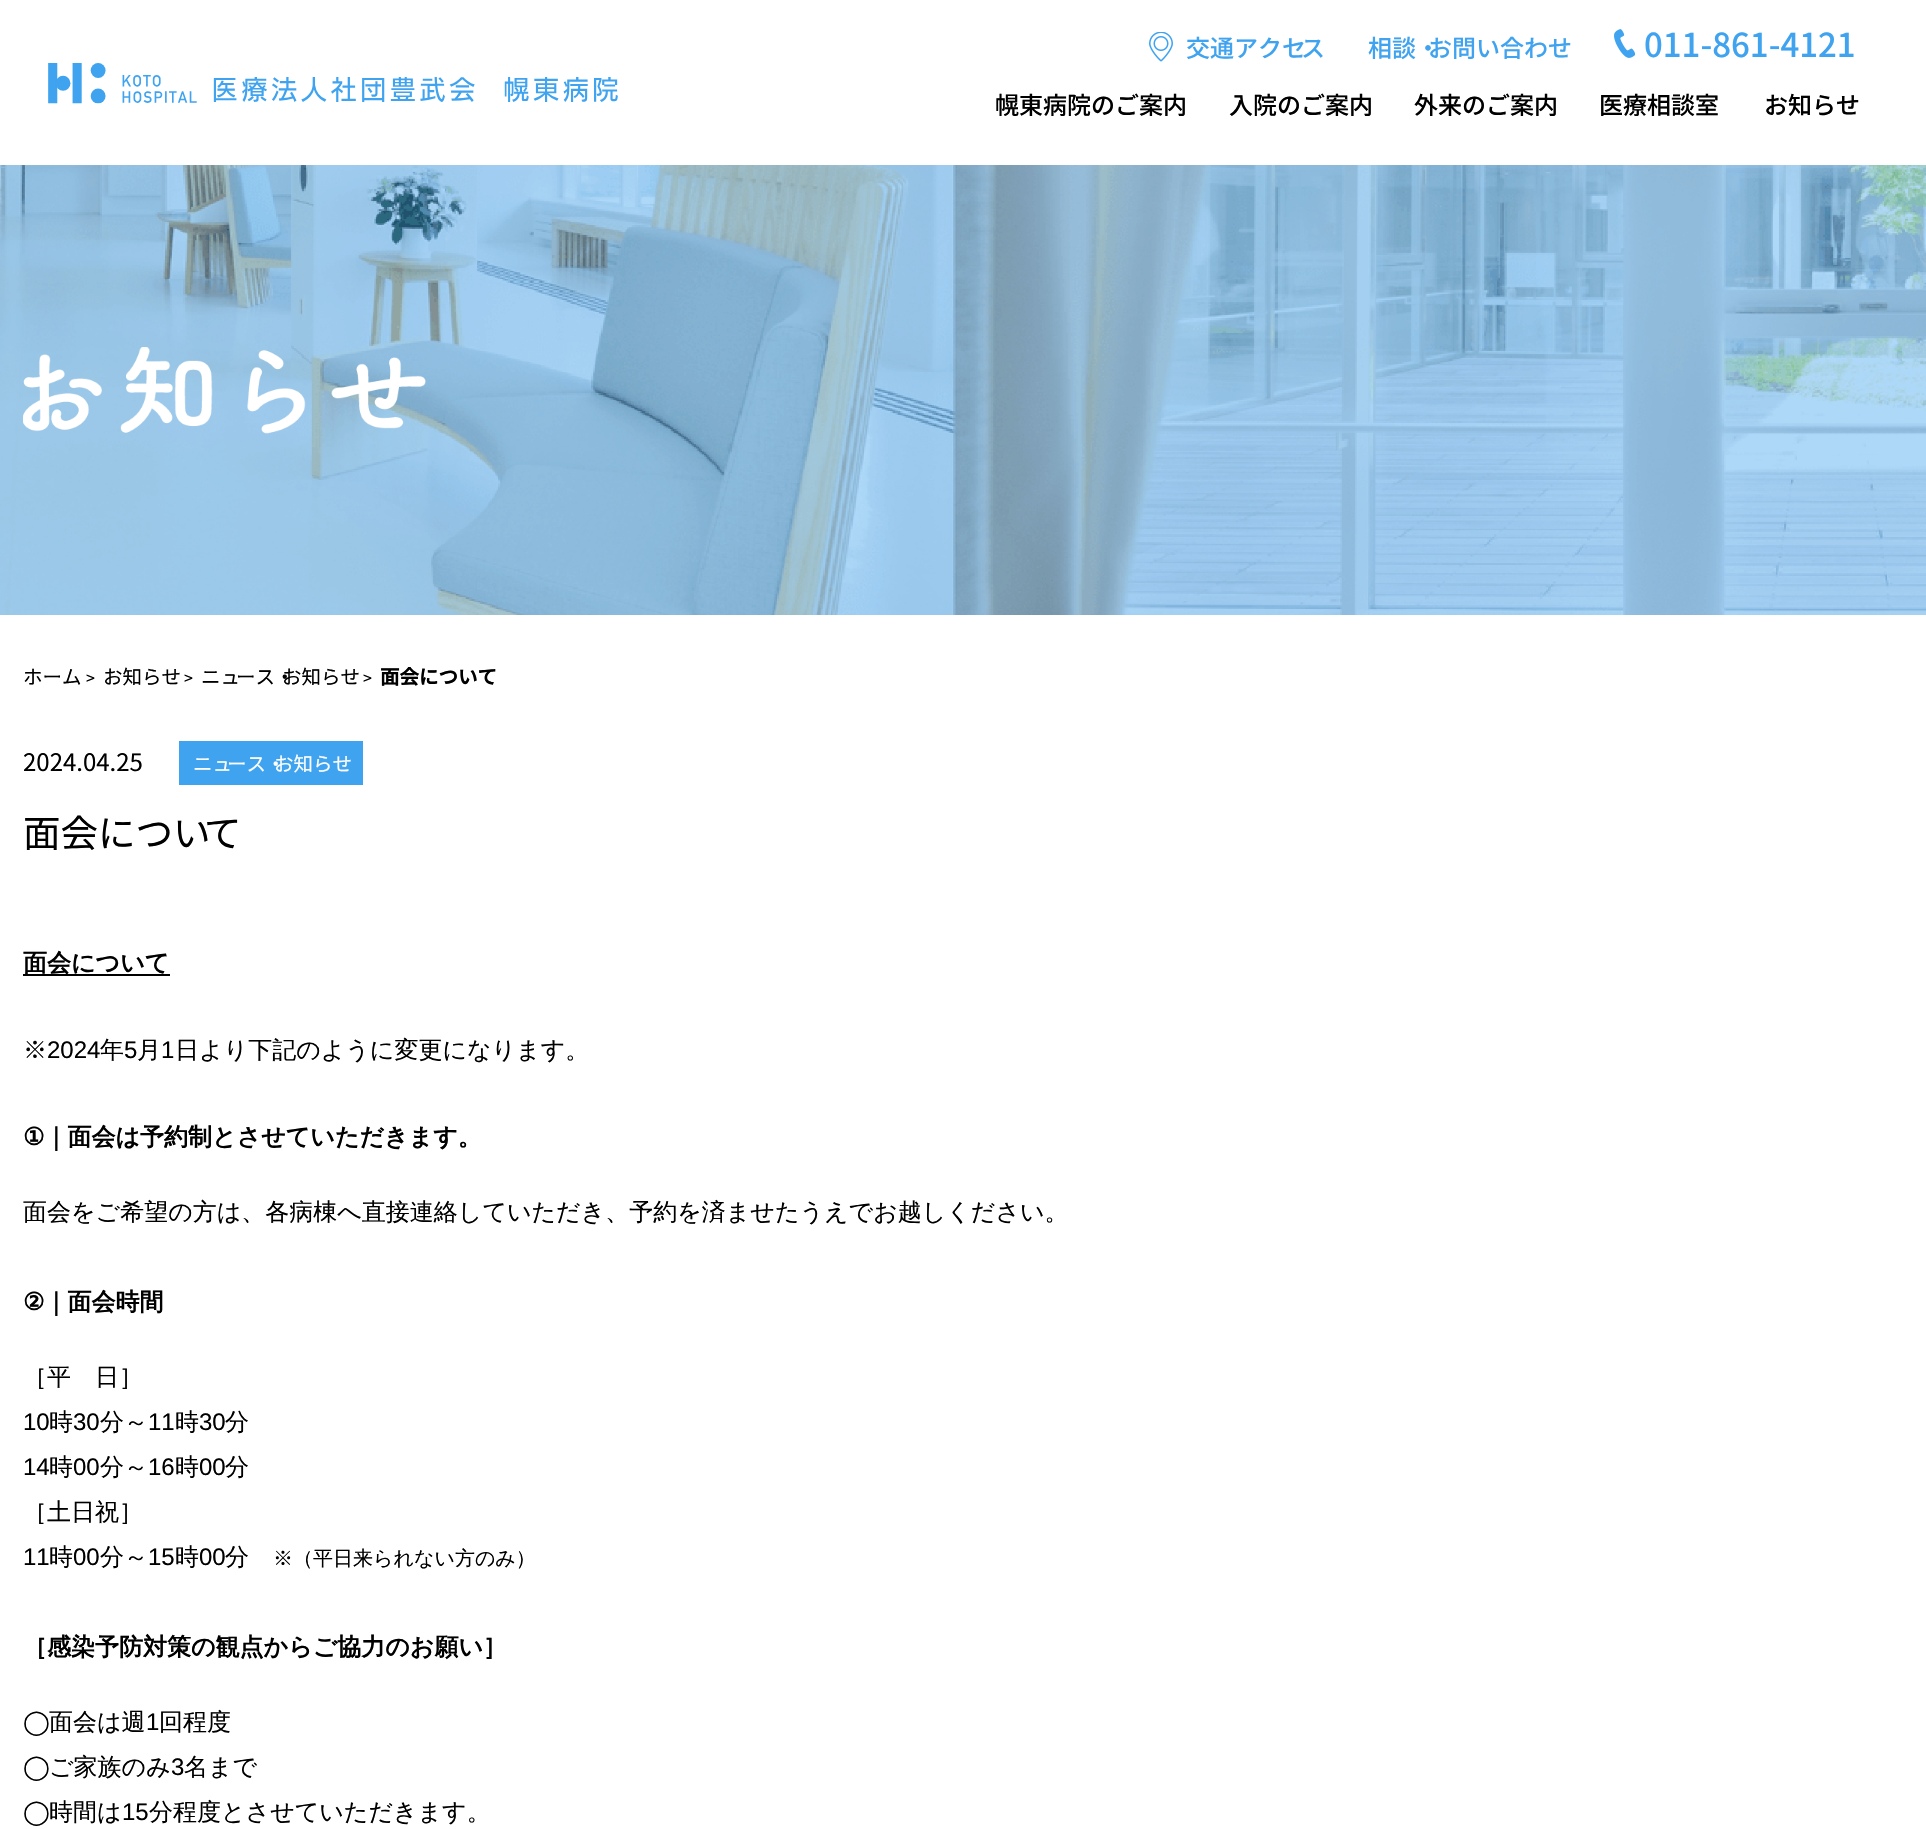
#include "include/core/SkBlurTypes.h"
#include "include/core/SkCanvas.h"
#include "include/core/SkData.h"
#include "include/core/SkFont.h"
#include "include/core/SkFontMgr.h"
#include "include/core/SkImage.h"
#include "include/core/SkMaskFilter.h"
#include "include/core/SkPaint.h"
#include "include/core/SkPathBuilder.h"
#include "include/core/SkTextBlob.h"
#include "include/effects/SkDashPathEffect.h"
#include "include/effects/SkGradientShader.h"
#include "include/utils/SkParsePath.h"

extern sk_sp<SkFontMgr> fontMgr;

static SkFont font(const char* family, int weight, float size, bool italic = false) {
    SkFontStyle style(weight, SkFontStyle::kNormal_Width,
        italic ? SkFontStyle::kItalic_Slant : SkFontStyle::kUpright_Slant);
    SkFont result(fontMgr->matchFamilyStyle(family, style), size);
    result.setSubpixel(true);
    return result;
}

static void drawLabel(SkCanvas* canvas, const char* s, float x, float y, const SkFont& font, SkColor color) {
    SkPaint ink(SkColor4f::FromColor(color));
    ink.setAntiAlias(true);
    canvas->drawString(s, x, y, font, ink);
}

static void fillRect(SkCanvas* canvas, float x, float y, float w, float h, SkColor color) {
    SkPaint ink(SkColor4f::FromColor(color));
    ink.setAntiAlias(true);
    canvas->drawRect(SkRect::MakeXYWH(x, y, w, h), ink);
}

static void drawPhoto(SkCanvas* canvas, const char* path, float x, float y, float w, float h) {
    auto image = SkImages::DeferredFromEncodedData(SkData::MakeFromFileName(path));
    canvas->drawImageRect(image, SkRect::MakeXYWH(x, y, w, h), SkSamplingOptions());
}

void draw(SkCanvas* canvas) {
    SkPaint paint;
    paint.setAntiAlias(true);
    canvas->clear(0xFFFFFFFF);
    drawPhoto(canvas, "assets/img1.png", 48, 63, 570, 41);
    drawPhoto(canvas, "assets/img2.png", 1149, 32, 24, 30);
    SkFont font1 = font("Noto Sans JP", 500, 24);
    drawLabel(canvas, "交通アクセ", 1186, 57, font1, 0xFF3FA3EF);
    drawLabel(canvas, "ス", 1301, 57, font1, 0xFF3FA3EF);
    drawLabel(canvas, "相談・", 1368, 57, font1, 0xFF3FA3EF);
    drawLabel(canvas, "お問い合わせ", 1428, 57, font1, 0xFF3FA3EF);
    drawPhoto(canvas, "assets/img3.png", 1614, 29, 21, 29);
    SkFont font2 = font("Noto Sans JP", 500, 33);
    drawLabel(canvas, "011-861-4121", 1644, 57, font2, 0xFF3FA3EF);
    drawLabel(canvas, "幌東病院のご案内", 995, 114, font1, 0xFF000000);
    drawLabel(canvas, "入院のご案内", 1229, 114, font1, 0xFF000000);
    drawLabel(canvas, "外来のご案内", 1414, 114, font1, 0xFF000000);
    drawLabel(canvas, "医療相談室", 1599, 114, font1, 0xFF000000);
    drawLabel(canvas, "お知らせ", 1764, 114, font1, 0xFF000000);
    drawPhoto(canvas, "assets/img4.png", 0, 165, 1926, 450);
    drawPhoto(canvas, "assets/img5.png", 23, 347, 403, 87);
    SkFont font3 = font("Noto Sans JP", 400, 19.5f);
    drawLabel(canvas, "ホーム", 23, 684, font3, 0xFF000000);
    SkFont font4 = font("Noto Sans JP", 400, 16);
    drawLabel(canvas, ">", 86, 684, font4, 0xFF000000);
    drawLabel(canvas, "お知らせ", 103, 684, font3, 0xFF000000);
    drawLabel(canvas, ">", 184, 684, font4, 0xFF000000);
    drawLabel(canvas, "ニュ", 201, 684, font3, 0xFF000000);
    drawLabel(canvas, "ース・", 236, 684, font3, 0xFF000000);
    drawLabel(canvas, "お知らせ", 282, 684, font3, 0xFF000000);
    drawLabel(canvas, ">", 363, 684, font4, 0xFF000000);
    SkFont font5 = font("Noto Sans JP", 700, 19.5f);
    drawLabel(canvas, "面会について", 380, 684, font5, 0xFF000000);
    SkFont font6 = font("Noto Sans JP", 400, 24);
    drawLabel(canvas, "2024.04.25", 23, 771, font6, 0xFF000000);
    fillRect(canvas, 179, 741, 184, 44, 0xFF3FA3EF);
    drawLabel(canvas, "ニュ", 193, 771, font3, 0xFFFFFFFF);
    drawLabel(canvas, "ース・", 227, 771, font3, 0xFFFFFFFF);
    drawLabel(canvas, "お知らせ", 274, 771, font3, 0xFFFFFFFF);
    SkFont font7 = font("Noto Sans JP", 400, 37.5f);
    drawLabel(canvas, "面会につい", 23, 847, font7, 0xFF000000);
    drawLabel(canvas, "て", 204, 847, font7, 0xFF000000);
    fillRect(canvas, 23, 974, 147, 2, 0xFF000000);
    SkFont font8 = font("WenQuanYi Zen Hei", 700, 24);
    drawLabel(canvas, "面会について", 23, 971, font8, 0xFF000000);
    SkFont font9 = font("WenQuanYi Zen Hei", 500, 24);
    drawLabel(canvas, "※", 23, 1058, font9, 0xFF000000);
    SkFont font10 = font("Liberation Sans", 400, 24);
    drawLabel(canvas, "2024", 47, 1058, font10, 0xFF000000);
    drawLabel(canvas, "年", 100, 1058, font9, 0xFF000000);
    drawLabel(canvas, "5", 124, 1058, font10, 0xFF000000);
    drawLabel(canvas, "月", 137, 1058, font9, 0xFF000000);
    drawLabel(canvas, "1", 161, 1058, font10, 0xFF000000);
    drawLabel(canvas, "日より下記のように変更になります。", 175, 1058, font9, 0xFF000000);
    SkFont font11 = font("DejaVu Sans", 700, 24);
    drawLabel(canvas, "①", 23, 1145, font11, 0xFF000000);
    drawLabel(canvas, "｜面会は予約制とさせていただきます。", 44, 1145, font8, 0xFF000000);
    drawLabel(canvas, "面会をご希望の方は、各病棟へ直接連絡していただき、予約を済ませたうえでお越しください。", 23, 1220, font9, 0xFF000000);
    drawLabel(canvas, "②", 23, 1310, font11, 0xFF000000);
    drawLabel(canvas, "｜面会時間", 44, 1310, font8, 0xFF000000);
    drawLabel(canvas, "［平　日］", 23, 1385, font9, 0xFF000000);
    drawLabel(canvas, "10", 23, 1430, font10, 0xFF000000);
    drawLabel(canvas, "時", 49, 1430, font9, 0xFF000000);
    drawLabel(canvas, "30", 73, 1430, font10, 0xFF000000);
    drawLabel(canvas, "分～", 100, 1430, font9, 0xFF000000);
    drawLabel(canvas, "11", 148, 1430, font10, 0xFF000000);
    drawLabel(canvas, "時", 175, 1430, font9, 0xFF000000);
    drawLabel(canvas, "30", 199, 1430, font10, 0xFF000000);
    drawLabel(canvas, "分", 225, 1430, font9, 0xFF000000);
    drawLabel(canvas, "14", 23, 1475, font10, 0xFF000000);
    drawLabel(canvas, "時", 49, 1475, font9, 0xFF000000);
    drawLabel(canvas, "00", 73, 1475, font10, 0xFF000000);
    drawLabel(canvas, "分～", 100, 1475, font9, 0xFF000000);
    drawLabel(canvas, "16", 148, 1475, font10, 0xFF000000);
    drawLabel(canvas, "時", 175, 1475, font9, 0xFF000000);
    drawLabel(canvas, "00", 199, 1475, font10, 0xFF000000);
    drawLabel(canvas, "分", 225, 1475, font9, 0xFF000000);
    drawLabel(canvas, "［土日祝］", 23, 1520, font9, 0xFF000000);
    drawLabel(canvas, "11", 23, 1565, font10, 0xFF000000);
    drawLabel(canvas, "時", 49, 1565, font9, 0xFF000000);
    drawLabel(canvas, "00", 73, 1565, font10, 0xFF000000);
    drawLabel(canvas, "分～", 100, 1565, font9, 0xFF000000);
    drawLabel(canvas, "15", 148, 1565, font10, 0xFF000000);
    drawLabel(canvas, "時", 175, 1565, font9, 0xFF000000);
    drawLabel(canvas, "00", 199, 1565, font10, 0xFF000000);
    drawLabel(canvas, "分", 225, 1565, font9, 0xFF000000);
    SkFont font12 = font("WenQuanYi Zen Hei", 500, 20);
    drawLabel(canvas, "※（平日来られない方のみ）", 273, 1565, font12, 0xFF000000);
    drawLabel(canvas, "［感染予防対策の観点からご協力のお願い］", 23, 1655, font8, 0xFF000000);
    SkFont font13 = font("DejaVu Sans", 400, 24);
    drawLabel(canvas, "◯", 23, 1730, font13, 0xFF000000);
    drawLabel(canvas, "面会は週", 49, 1730, font9, 0xFF000000);
    drawLabel(canvas, "1", 146, 1730, font10, 0xFF000000);
    drawLabel(canvas, "回程度", 159, 1730, font9, 0xFF000000);
    drawLabel(canvas, "◯", 23, 1775, font13, 0xFF000000);
    drawLabel(canvas, "ご家族のみ", 49, 1775, font9, 0xFF000000);
    drawLabel(canvas, "3", 171, 1775, font10, 0xFF000000);
    drawLabel(canvas, "名まで", 184, 1775, font9, 0xFF000000);
    drawLabel(canvas, "◯", 23, 1820, font13, 0xFF000000);
    drawLabel(canvas, "時間は", 49, 1820, font9, 0xFF000000);
    drawLabel(canvas, "15", 122, 1820, font10, 0xFF000000);
    drawLabel(canvas, "分程度とさせていただきます。", 149, 1820, font9, 0xFF000000);
}
